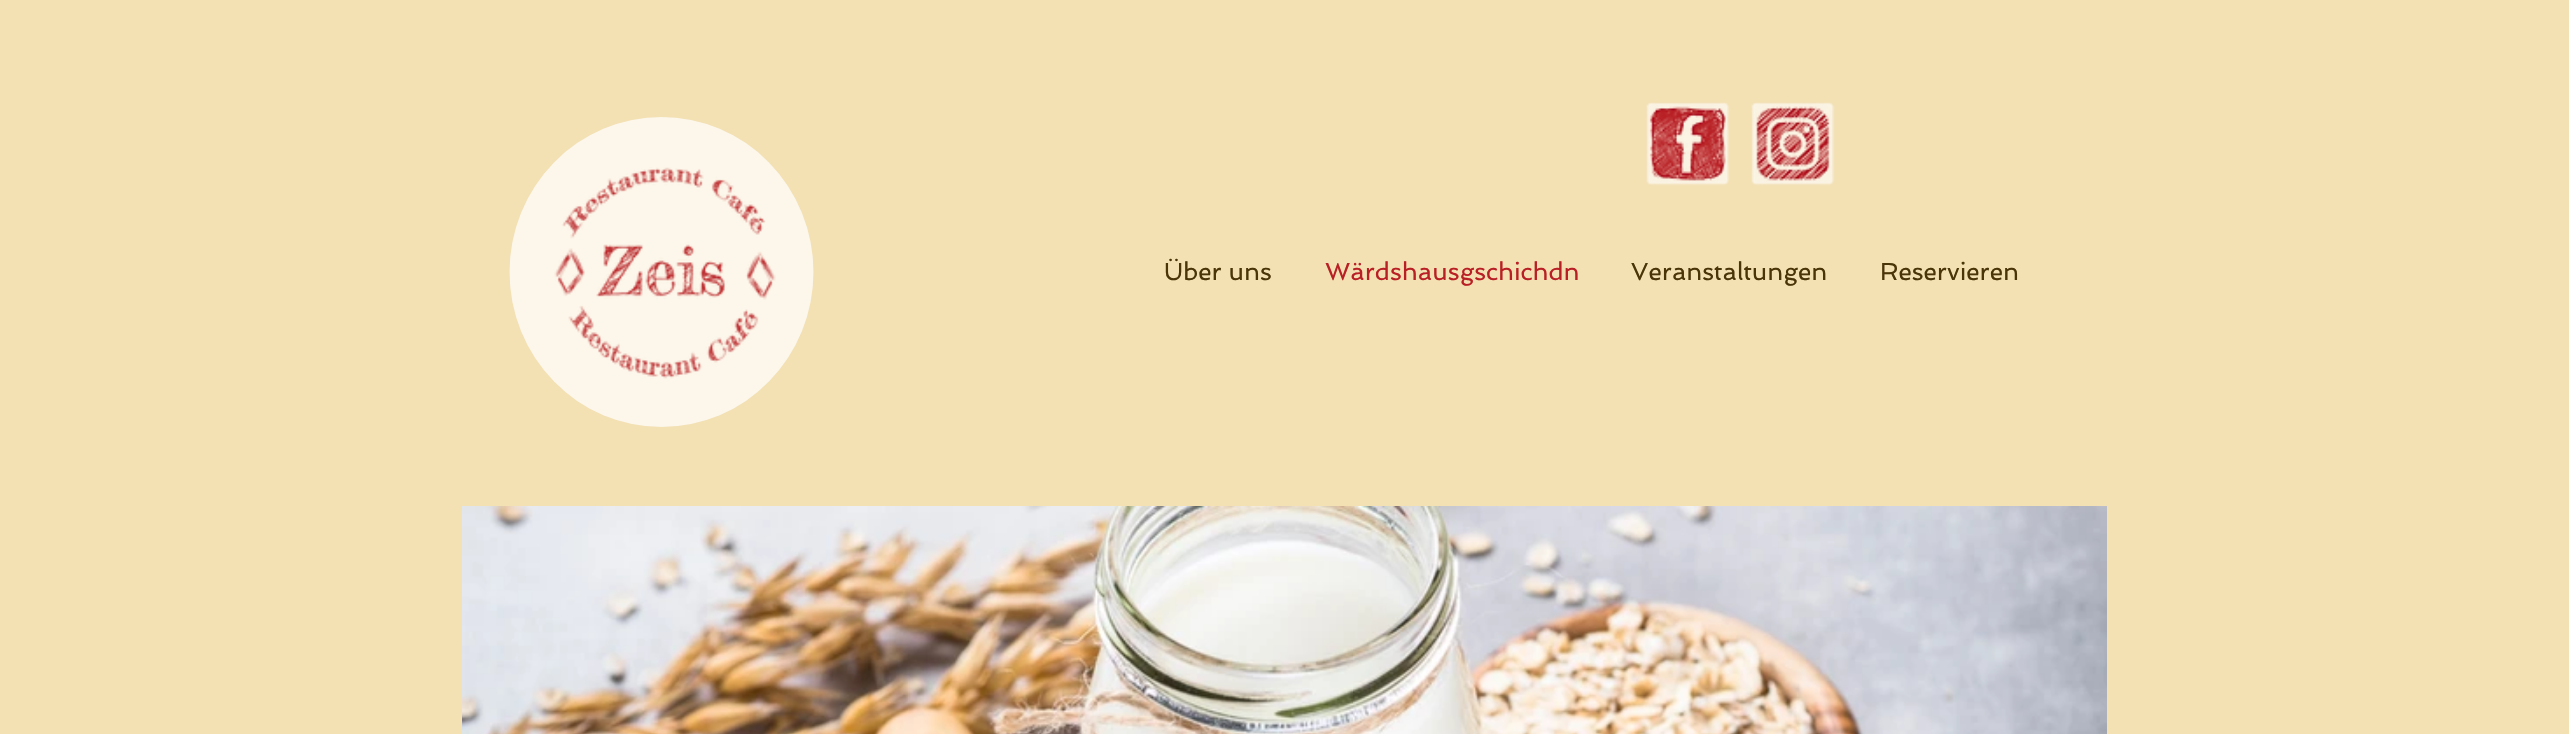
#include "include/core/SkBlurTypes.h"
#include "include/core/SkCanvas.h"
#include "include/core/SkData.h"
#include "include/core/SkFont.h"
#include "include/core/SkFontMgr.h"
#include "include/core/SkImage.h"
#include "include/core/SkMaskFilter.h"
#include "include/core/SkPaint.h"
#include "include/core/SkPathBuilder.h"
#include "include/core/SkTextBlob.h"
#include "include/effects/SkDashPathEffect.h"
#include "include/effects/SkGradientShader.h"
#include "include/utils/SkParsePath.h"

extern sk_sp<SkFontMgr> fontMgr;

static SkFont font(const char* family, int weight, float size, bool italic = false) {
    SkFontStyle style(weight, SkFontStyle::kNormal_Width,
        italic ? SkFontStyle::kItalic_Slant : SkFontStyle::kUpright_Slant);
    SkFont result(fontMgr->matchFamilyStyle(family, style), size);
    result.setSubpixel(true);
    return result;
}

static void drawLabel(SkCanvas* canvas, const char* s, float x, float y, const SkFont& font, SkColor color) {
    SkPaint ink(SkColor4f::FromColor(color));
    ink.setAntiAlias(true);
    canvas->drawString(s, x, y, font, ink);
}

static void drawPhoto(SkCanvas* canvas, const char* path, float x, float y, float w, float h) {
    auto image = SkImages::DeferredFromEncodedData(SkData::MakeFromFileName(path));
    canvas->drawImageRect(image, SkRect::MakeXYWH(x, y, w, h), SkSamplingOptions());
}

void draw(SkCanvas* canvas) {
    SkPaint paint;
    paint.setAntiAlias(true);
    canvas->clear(0xFFF3E0B3);
    paint.setColor(0xFFFCF7EA);
    canvas->drawOval(SkRect::MakeXYWH(509.5f, 117, 304, 310), paint);
    drawPhoto(canvas, "assets/img1.png", 554, 167, 222, 212);
    drawPhoto(canvas, "assets/img2.png", 1646, 102, 84, 84);
    drawPhoto(canvas, "assets/img3.png", 1751, 102, 84, 84);
    SkFont font1 = font("Spinnaker", 400, 24.5f);
    drawLabel(canvas, "Über uns", 1164, 280, font1, 0xFF493508);
    drawLabel(canvas, "Wärdshausgschichdn", 1325, 280, font1, 0xFFB92025);
    drawLabel(canvas, "Veranstaltungen", 1631, 280, font1, 0xFF493508);
    drawLabel(canvas, "Reservieren", 1880, 280, font1, 0xFF493508);
    drawPhoto(canvas, "assets/img4.png", 462, 506, 1645, 228);
}
